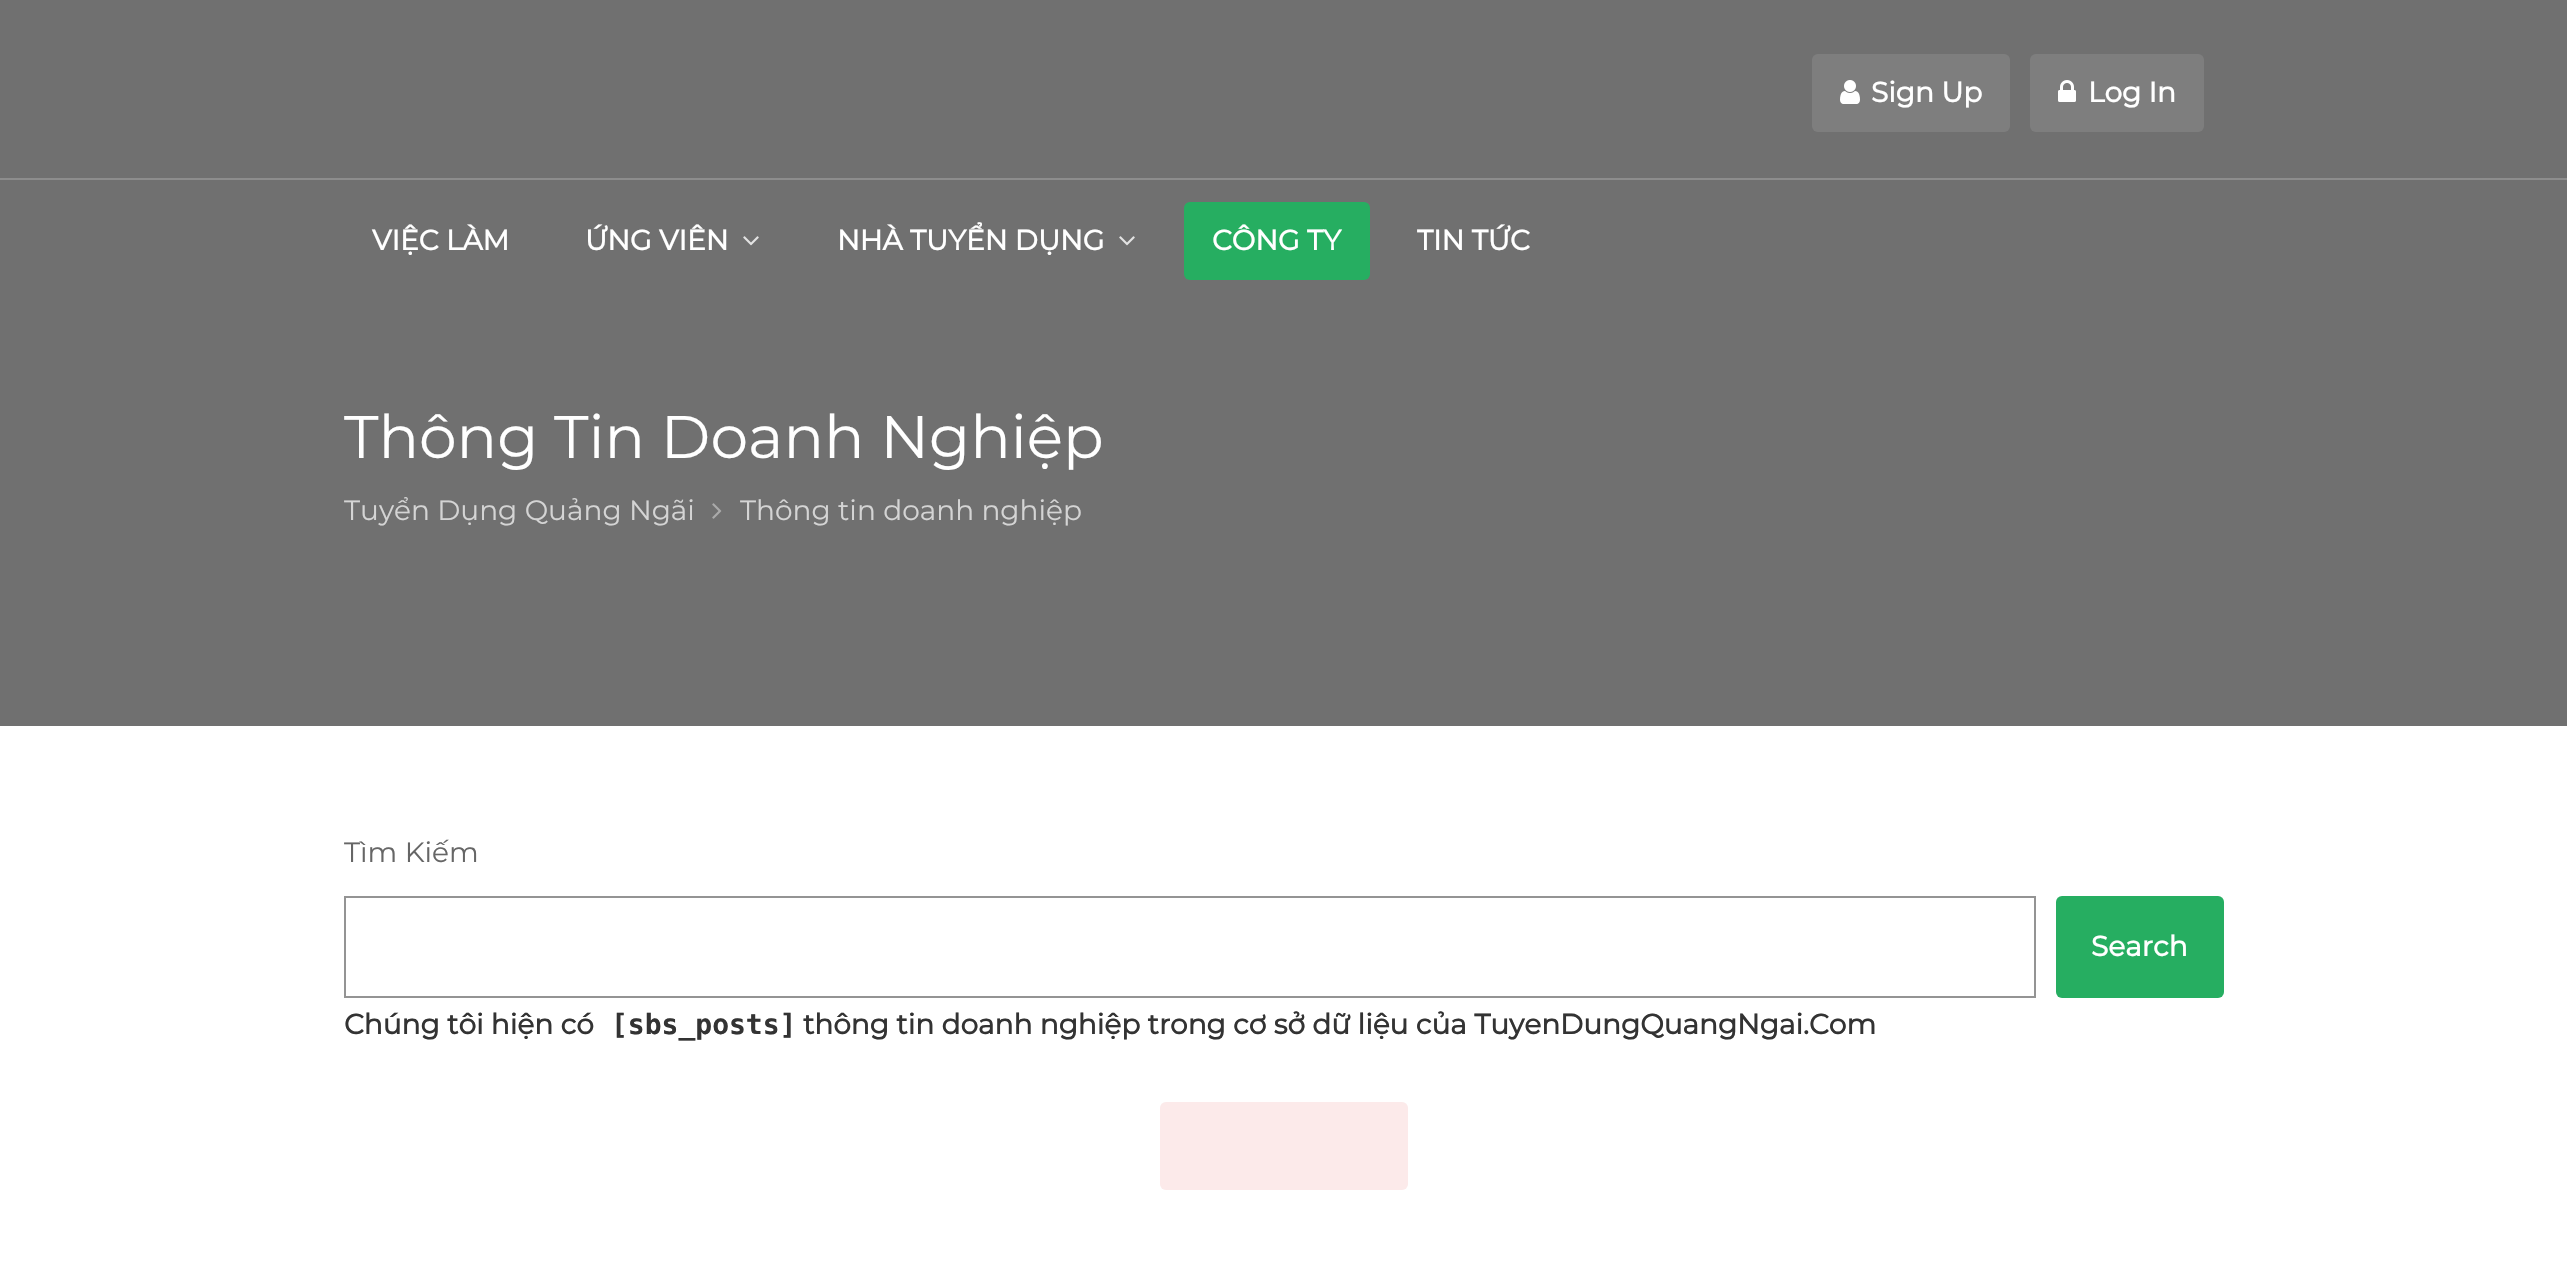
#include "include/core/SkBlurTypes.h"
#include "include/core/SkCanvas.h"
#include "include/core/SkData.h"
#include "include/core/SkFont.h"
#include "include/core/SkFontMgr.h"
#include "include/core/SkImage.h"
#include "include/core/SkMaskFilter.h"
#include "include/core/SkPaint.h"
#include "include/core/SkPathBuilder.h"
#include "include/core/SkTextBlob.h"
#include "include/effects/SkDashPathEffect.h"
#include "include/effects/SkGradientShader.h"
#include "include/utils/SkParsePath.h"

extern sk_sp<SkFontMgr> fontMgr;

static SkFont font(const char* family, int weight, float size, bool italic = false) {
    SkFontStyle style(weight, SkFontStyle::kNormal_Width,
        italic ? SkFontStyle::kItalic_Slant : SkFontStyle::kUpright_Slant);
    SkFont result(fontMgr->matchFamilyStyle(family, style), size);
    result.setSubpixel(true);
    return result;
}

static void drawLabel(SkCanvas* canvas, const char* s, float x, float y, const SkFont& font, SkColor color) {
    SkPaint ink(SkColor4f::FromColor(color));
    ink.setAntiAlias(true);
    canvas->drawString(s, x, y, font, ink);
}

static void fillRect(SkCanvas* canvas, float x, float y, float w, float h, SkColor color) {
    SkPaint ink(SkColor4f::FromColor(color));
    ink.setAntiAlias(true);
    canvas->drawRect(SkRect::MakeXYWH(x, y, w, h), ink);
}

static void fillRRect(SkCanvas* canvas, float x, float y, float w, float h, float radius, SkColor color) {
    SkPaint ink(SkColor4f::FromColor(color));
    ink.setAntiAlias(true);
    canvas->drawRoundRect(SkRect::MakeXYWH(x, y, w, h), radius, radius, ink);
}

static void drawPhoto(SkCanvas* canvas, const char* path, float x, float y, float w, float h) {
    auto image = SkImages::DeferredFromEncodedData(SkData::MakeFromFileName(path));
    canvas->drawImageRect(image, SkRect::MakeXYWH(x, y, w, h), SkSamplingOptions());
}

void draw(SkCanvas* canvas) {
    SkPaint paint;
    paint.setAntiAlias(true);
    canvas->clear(0xFFFFFFFF);
    fillRect(canvas, 0, 0, 2567, 726, 0xFF707070);
    fillRect(canvas, 0, 178, 2567, 2, 0xFF8D8D8D);
    fillRRect(canvas, 1812, 54, 198, 78, 6, 0xFF7E7E7E);
    drawPhoto(canvas, "assets/img1.png", 1840, 80, 20, 24);
    SkFont font1 = font("Montserrat", 700, 28);
    drawLabel(canvas, "Sign Up", 1871, 102, font1, 0xFFFFFFFF);
    fillRRect(canvas, 2030, 54, 174, 78, 6, 0xFF7E7E7E);
    drawPhoto(canvas, "assets/img2.png", 2058, 80, 18, 22);
    drawLabel(canvas, "Log In", 2088, 102, font1, 0xFFFFFFFF);
    drawLabel(canvas, "VIỆC LÀM", 372, 250, font1, 0xFFFFFFFF);
    drawLabel(canvas, "ỨNG VIÊN", 585, 250, font1, 0xFFFFFFFF);
    drawPhoto(canvas, "assets/img3.png", 743, 236, 16, 10);
    drawLabel(canvas, "NHÀ TUYỂN DỤNG", 837, 250, font1, 0xFFFFFFFF);
    drawPhoto(canvas, "assets/img3.png", 1119, 236, 16, 10);
    fillRRect(canvas, 1184, 202, 186, 78, 6, 0xFF26AE61);
    drawLabel(canvas, "CÔNG TY", 1212, 250, font1, 0xFFFFFFFF);
    drawLabel(canvas, "TIN TỨC", 1417, 250, font1, 0xFFFFFFFF);
    SkFont font2 = font("Montserrat", 100, 60);
    drawLabel(canvas, "Thông Tin Doanh Nghiệp", 344, 458, font2, 0xFFFFFFFF);
    SkFont font3 = font("Montserrat", 100, 28);
    drawLabel(canvas, "Tuyển Dụng Quảng Ngãi", 344, 520, font3, 0xFFD4D4D4);
    drawPhoto(canvas, "assets/img4.png", 712, 503, 10, 16);
    drawLabel(canvas, "Thông tin doanh nghiệp", 740, 520, font3, 0xFFD4D4D4);
    drawLabel(canvas, "Tìm Kiếm", 344, 862, font3, 0xFF666666);
    paint.setStroke(true);
    paint.setStrokeWidth(2);
    paint.setColor(0xFF949494);
    canvas->drawRect(SkRect::MakeXYWH(345, 897, 1690, 100), paint);
    fillRRect(canvas, 2056, 896, 168, 102, 6, 0xFF26AE61);
    drawLabel(canvas, "Search", 2091, 956, font1, 0xFFFFFFFF);
    drawLabel(canvas, "Chúng tôi hiện có", 344, 1034, font1, 0xFF333333);
    SkFont font4 = font("DejaVu Sans Mono", 700, 28);
    drawLabel(canvas, "[sbs_posts]", 611, 1034, font4, 0xFF333333);
    drawLabel(canvas, "thông tin doanh nghiệp trong cơ sở dữ liệu của TuyenDungQuangNgai.Com", 803, 1034, font1, 0xFF333333);
    fillRRect(canvas, 1160, 1102, 248, 88, 6, 0xFFFCEAEA);
}
